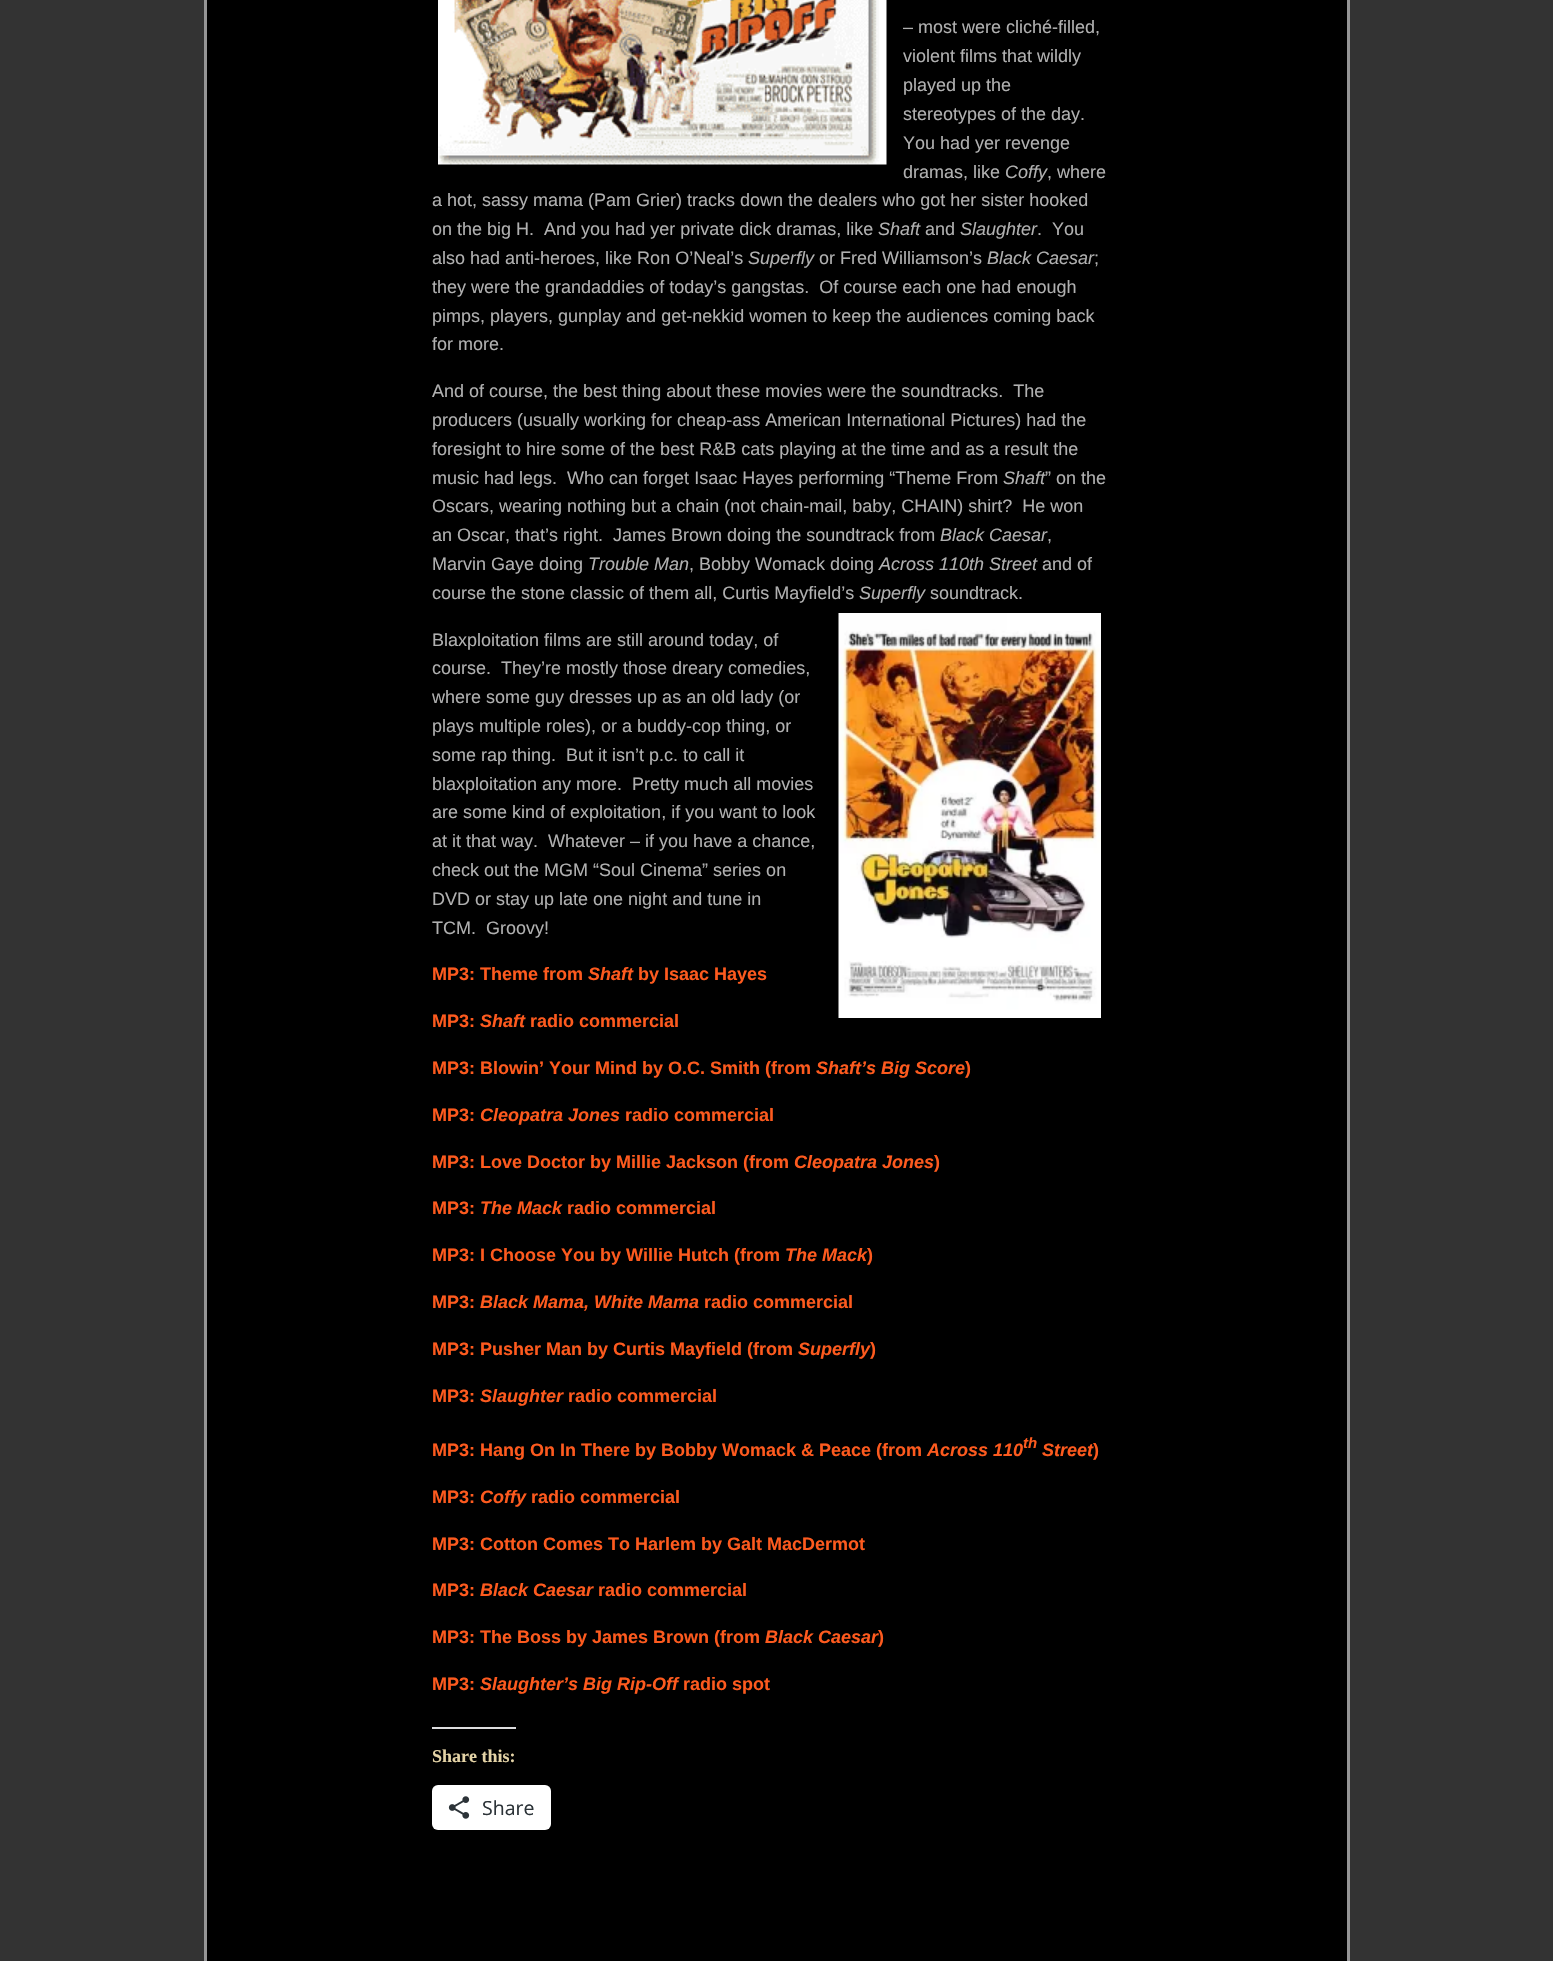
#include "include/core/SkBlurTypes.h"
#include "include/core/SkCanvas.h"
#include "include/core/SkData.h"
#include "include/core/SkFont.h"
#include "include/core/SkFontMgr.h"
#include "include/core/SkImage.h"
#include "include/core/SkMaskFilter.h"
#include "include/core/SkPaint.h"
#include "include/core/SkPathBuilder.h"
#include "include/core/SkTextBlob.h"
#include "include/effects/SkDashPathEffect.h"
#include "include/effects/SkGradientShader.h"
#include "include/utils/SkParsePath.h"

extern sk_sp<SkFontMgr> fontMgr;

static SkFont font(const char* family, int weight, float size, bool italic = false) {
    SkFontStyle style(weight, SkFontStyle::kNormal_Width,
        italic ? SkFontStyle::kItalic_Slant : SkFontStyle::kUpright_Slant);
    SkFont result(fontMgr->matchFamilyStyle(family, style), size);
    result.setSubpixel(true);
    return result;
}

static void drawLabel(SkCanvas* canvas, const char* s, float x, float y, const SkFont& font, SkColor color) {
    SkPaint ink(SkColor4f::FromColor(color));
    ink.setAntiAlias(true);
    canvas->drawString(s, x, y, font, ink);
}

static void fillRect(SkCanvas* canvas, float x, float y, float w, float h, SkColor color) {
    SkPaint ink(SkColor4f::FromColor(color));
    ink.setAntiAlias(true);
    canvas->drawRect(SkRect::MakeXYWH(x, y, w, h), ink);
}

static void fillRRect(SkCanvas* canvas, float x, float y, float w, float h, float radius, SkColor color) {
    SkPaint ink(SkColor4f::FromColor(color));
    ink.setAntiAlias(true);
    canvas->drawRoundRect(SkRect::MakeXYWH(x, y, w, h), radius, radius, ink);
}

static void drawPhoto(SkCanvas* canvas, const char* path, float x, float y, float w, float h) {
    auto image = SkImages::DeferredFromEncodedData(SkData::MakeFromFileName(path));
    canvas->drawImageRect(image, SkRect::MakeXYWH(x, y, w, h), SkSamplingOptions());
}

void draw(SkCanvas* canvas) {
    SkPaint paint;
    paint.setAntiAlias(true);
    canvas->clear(0xFF333333);
    paint.setColor(0xFF000000);
    canvas->drawRect(SkRect::MakeXYWH(205.5f, -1.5f, 1143, 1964), paint);
    paint.setStroke(true);
    paint.setStrokeWidth(3);
    paint.setColor(0xFF959596);
    canvas->drawRect(SkRect::MakeXYWH(205.5f, -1.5f, 1143, 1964), paint);
    drawPhoto(canvas, "assets/img1.png", 438, 0, 449, 165);
    SkFont font1 = font("Liberation Sans", 400, 18);
    drawLabel(canvas, "– most were cliché-filled,", 903, 33, font1, 0xFFB0B0B0);
    drawLabel(canvas, "violent films that wildly", 903, 62, font1, 0xFFB0B0B0);
    drawLabel(canvas, "played up the", 903, 91, font1, 0xFFB0B0B0);
    drawLabel(canvas, "stereotypes of the day.", 903, 120, font1, 0xFFB0B0B0);
    drawLabel(canvas, "You had yer revenge", 903, 149, font1, 0xFFB0B0B0);
    drawLabel(canvas, "dramas, like", 903, 178, font1, 0xFFB0B0B0);
    SkFont font2 = font("Liberation Sans", 400, 18, true);
    drawLabel(canvas, "Coffy", 1005, 178, font2, 0xFFB0B0B0);
    drawLabel(canvas, ", where", 1047, 178, font1, 0xFFB0B0B0);
    drawLabel(canvas, "a hot, sassy mama (Pam Grier) tracks down the dealers who got her sister hooked", 432, 206, font1, 0xFFB0B0B0);
    drawLabel(canvas, "on the big H.  And you had yer private dick dramas, like", 432, 235, font1, 0xFFB0B0B0);
    drawLabel(canvas, "Shaft", 878, 235, font2, 0xFFB0B0B0);
    drawLabel(canvas, "and", 925, 235, font1, 0xFFB0B0B0);
    drawLabel(canvas, "Slaughter", 960, 235, font2, 0xFFB0B0B0);
    drawLabel(canvas, ".  You", 1037, 235, font1, 0xFFB0B0B0);
    drawLabel(canvas, "also had anti-heroes, like Ron O’Neal’s", 432, 264, font1, 0xFFB0B0B0);
    drawLabel(canvas, "Superfly", 748, 264, font2, 0xFFB0B0B0);
    drawLabel(canvas, "or Fred Williamson’s", 819, 264, font1, 0xFFB0B0B0);
    drawLabel(canvas, "Black Caesar", 987, 264, font2, 0xFFB0B0B0);
    drawLabel(canvas, ";", 1094, 264, font1, 0xFFB0B0B0);
    drawLabel(canvas, "they were the grandaddies of today’s gangstas.  Of course each one had enough", 432, 293, font1, 0xFFB0B0B0);
    drawLabel(canvas, "pimps, players, gunplay and get-nekkid women to keep the audiences coming back", 432, 322, font1, 0xFFB0B0B0);
    drawLabel(canvas, "for more.", 432, 350, font1, 0xFFB0B0B0);
    drawLabel(canvas, "And of course, the best thing about these movies were the soundtracks.  The", 432, 397, font1, 0xFFB0B0B0);
    drawLabel(canvas, "producers (usually working for cheap-ass American International Pictures) had the", 432, 426, font1, 0xFFB0B0B0);
    drawLabel(canvas, "foresight to hire some of the best R&B cats playing at the time and as a result the", 432, 455, font1, 0xFFB0B0B0);
    drawLabel(canvas, "music had legs.  Who can forget Isaac Hayes performing “Theme From", 432, 484, font1, 0xFFB0B0B0);
    drawLabel(canvas, "Shaft", 1003, 484, font2, 0xFFB0B0B0);
    drawLabel(canvas, "” on the", 1045, 484, font1, 0xFFB0B0B0);
    drawLabel(canvas, "Oscars, wearing nothing but a chain (not chain-mail, baby, CHAIN) shirt?  He won", 432, 512, font1, 0xFFB0B0B0);
    drawLabel(canvas, "an Oscar, that’s right.  James Brown doing the soundtrack from", 432, 541, font1, 0xFFB0B0B0);
    drawLabel(canvas, "Black Caesar", 940, 541, font2, 0xFFB0B0B0);
    drawLabel(canvas, ",", 1047, 541, font1, 0xFFB0B0B0);
    drawLabel(canvas, "Marvin Gaye doing", 432, 570, font1, 0xFFB0B0B0);
    drawLabel(canvas, "Trouble Man", 588, 570, font2, 0xFFB0B0B0);
    drawLabel(canvas, ", Bobby Womack doing", 689, 570, font1, 0xFFB0B0B0);
    drawLabel(canvas, "Across 110th Street", 879, 570, font2, 0xFFB0B0B0);
    drawLabel(canvas, "and of", 1042, 570, font1, 0xFFB0B0B0);
    drawLabel(canvas, "course the stone classic of them all, Curtis Mayfield’s", 432, 599, font1, 0xFFB0B0B0);
    drawLabel(canvas, "Superfly", 859, 599, font2, 0xFFB0B0B0);
    drawLabel(canvas, "soundtrack.", 930, 599, font1, 0xFFB0B0B0);
    drawPhoto(canvas, "assets/img2.png", 838, 613, 263, 405);
    drawLabel(canvas, "Blaxploitation films are still around today, of", 432, 646, font1, 0xFFB0B0B0);
    drawLabel(canvas, "course.  They’re mostly those dreary comedies,", 432, 674, font1, 0xFFB0B0B0);
    drawLabel(canvas, "where some guy dresses up as an old lady (or", 432, 703, font1, 0xFFB0B0B0);
    drawLabel(canvas, "plays multiple roles), or a buddy-cop thing, or", 432, 732, font1, 0xFFB0B0B0);
    drawLabel(canvas, "some rap thing.  But it isn’t p.c. to call it", 432, 761, font1, 0xFFB0B0B0);
    drawLabel(canvas, "blaxploitation any more.  Pretty much all movies", 432, 790, font1, 0xFFB0B0B0);
    drawLabel(canvas, "are some kind of exploitation, if you want to look", 432, 818, font1, 0xFFB0B0B0);
    drawLabel(canvas, "at it that way.  Whatever – if you have a chance,", 432, 847, font1, 0xFFB0B0B0);
    drawLabel(canvas, "check out the MGM “Soul Cinema” series on", 432, 876, font1, 0xFFB0B0B0);
    drawLabel(canvas, "DVD or stay up late one night and tune in", 432, 905, font1, 0xFFB0B0B0);
    drawLabel(canvas, "TCM.  Groovy!", 432, 934, font1, 0xFFB0B0B0);
    SkFont font3 = font("Liberation Sans", 700, 18);
    drawLabel(canvas, "MP3: Theme from", 432, 980, font3, 0xFFFD5A1E);
    SkFont font4 = font("Liberation Sans", 700, 18, true);
    drawLabel(canvas, "Shaft", 588, 980, font4, 0xFFFD5A1E);
    drawLabel(canvas, "by Isaac Hayes", 638, 980, font3, 0xFFFD5A1E);
    drawLabel(canvas, "MP3:", 432, 1027, font3, 0xFFFD5A1E);
    drawLabel(canvas, "Shaft", 480, 1027, font4, 0xFFFD5A1E);
    drawLabel(canvas, "radio commercial", 530, 1027, font3, 0xFFFD5A1E);
    drawLabel(canvas, "MP3: Blowin’ Your Mind by O.C. Smith (from", 432, 1074, font3, 0xFFFD5A1E);
    drawLabel(canvas, "Shaft’s Big Score", 816, 1074, font4, 0xFFFD5A1E);
    drawLabel(canvas, ")", 965, 1074, font3, 0xFFFD5A1E);
    drawLabel(canvas, "MP3:", 432, 1121, font3, 0xFFFD5A1E);
    drawLabel(canvas, "Cleopatra Jones", 480, 1121, font4, 0xFFFD5A1E);
    drawLabel(canvas, "radio commercial", 625, 1121, font3, 0xFFFD5A1E);
    drawLabel(canvas, "MP3: Love Doctor by Millie Jackson (from", 432, 1168, font3, 0xFFFD5A1E);
    drawLabel(canvas, "Cleopatra Jones", 794, 1168, font4, 0xFFFD5A1E);
    drawLabel(canvas, ")", 934, 1168, font3, 0xFFFD5A1E);
    drawLabel(canvas, "MP3:", 432, 1214, font3, 0xFFFD5A1E);
    drawLabel(canvas, "The Mack", 480, 1214, font4, 0xFFFD5A1E);
    drawLabel(canvas, "radio commercial", 567, 1214, font3, 0xFFFD5A1E);
    drawLabel(canvas, "MP3: I Choose You by Willie Hutch (from", 432, 1261, font3, 0xFFFD5A1E);
    drawLabel(canvas, "The Mack", 785, 1261, font4, 0xFFFD5A1E);
    drawLabel(canvas, ")", 867, 1261, font3, 0xFFFD5A1E);
    drawLabel(canvas, "MP3:", 432, 1308, font3, 0xFFFD5A1E);
    drawLabel(canvas, "Black Mama, White Mama", 480, 1308, font4, 0xFFFD5A1E);
    drawLabel(canvas, "radio commercial", 704, 1308, font3, 0xFFFD5A1E);
    drawLabel(canvas, "MP3: Pusher Man by Curtis Mayfield (from", 432, 1355, font3, 0xFFFD5A1E);
    drawLabel(canvas, "Superfly", 798, 1355, font4, 0xFFFD5A1E);
    drawLabel(canvas, ")", 870, 1355, font3, 0xFFFD5A1E);
    drawLabel(canvas, "MP3:", 432, 1402, font3, 0xFFFD5A1E);
    drawLabel(canvas, "Slaughter", 480, 1402, font4, 0xFFFD5A1E);
    drawLabel(canvas, "radio commercial", 568, 1402, font3, 0xFFFD5A1E);
    drawLabel(canvas, "MP3: Hang On In There by Bobby Womack & Peace (from", 432, 1456, font3, 0xFFFD5A1E);
    drawLabel(canvas, "Across 110", 927, 1456, font4, 0xFFFD5A1E);
    SkFont font5 = font("Liberation Sans", 700, 15, true);
    drawLabel(canvas, "th", 1023, 1448, font5, 0xFFFD5A1E);
    drawLabel(canvas, "Street", 1042, 1456, font4, 0xFFFD5A1E);
    drawLabel(canvas, ")", 1093, 1456, font3, 0xFFFD5A1E);
    drawLabel(canvas, "MP3:", 432, 1503, font3, 0xFFFD5A1E);
    drawLabel(canvas, "Coffy", 480, 1503, font4, 0xFFFD5A1E);
    drawLabel(canvas, "radio commercial", 531, 1503, font3, 0xFFFD5A1E);
    drawLabel(canvas, "MP3: Cotton Comes To Harlem by Galt MacDermot", 432, 1550, font3, 0xFFFD5A1E);
    drawLabel(canvas, "MP3:", 432, 1596, font3, 0xFFFD5A1E);
    drawLabel(canvas, "Black Caesar", 480, 1596, font4, 0xFFFD5A1E);
    drawLabel(canvas, "radio commercial", 598, 1596, font3, 0xFFFD5A1E);
    drawLabel(canvas, "MP3: The Boss by James Brown (from", 432, 1643, font3, 0xFFFD5A1E);
    drawLabel(canvas, "Black Caesar", 765, 1643, font4, 0xFFFD5A1E);
    drawLabel(canvas, ")", 878, 1643, font3, 0xFFFD5A1E);
    drawLabel(canvas, "MP3:", 432, 1690, font3, 0xFFFD5A1E);
    drawLabel(canvas, "Slaughter’s Big Rip-Off", 480, 1690, font4, 0xFFFD5A1E);
    drawLabel(canvas, "radio spot", 683, 1690, font3, 0xFFFD5A1E);
    fillRect(canvas, 432, 1727, 84, 2, 0xFFDCDCDE);
    SkFont font6 = font("Liberation Serif", 700, 18);
    drawLabel(canvas, "Share this:", 432, 1762, font6, 0xFFE4D3A6);
    fillRRect(canvas, 432, 1785, 119, 45, 6, 0xFFFFFFFF);
    drawPhoto(canvas, "assets/img3.png", 448, 1796, 22, 23);
    SkFont font7 = font("Open Sans", 400, 19.5f);
    drawLabel(canvas, "Share", 482, 1815, font7, 0xFF2C3338);
}
